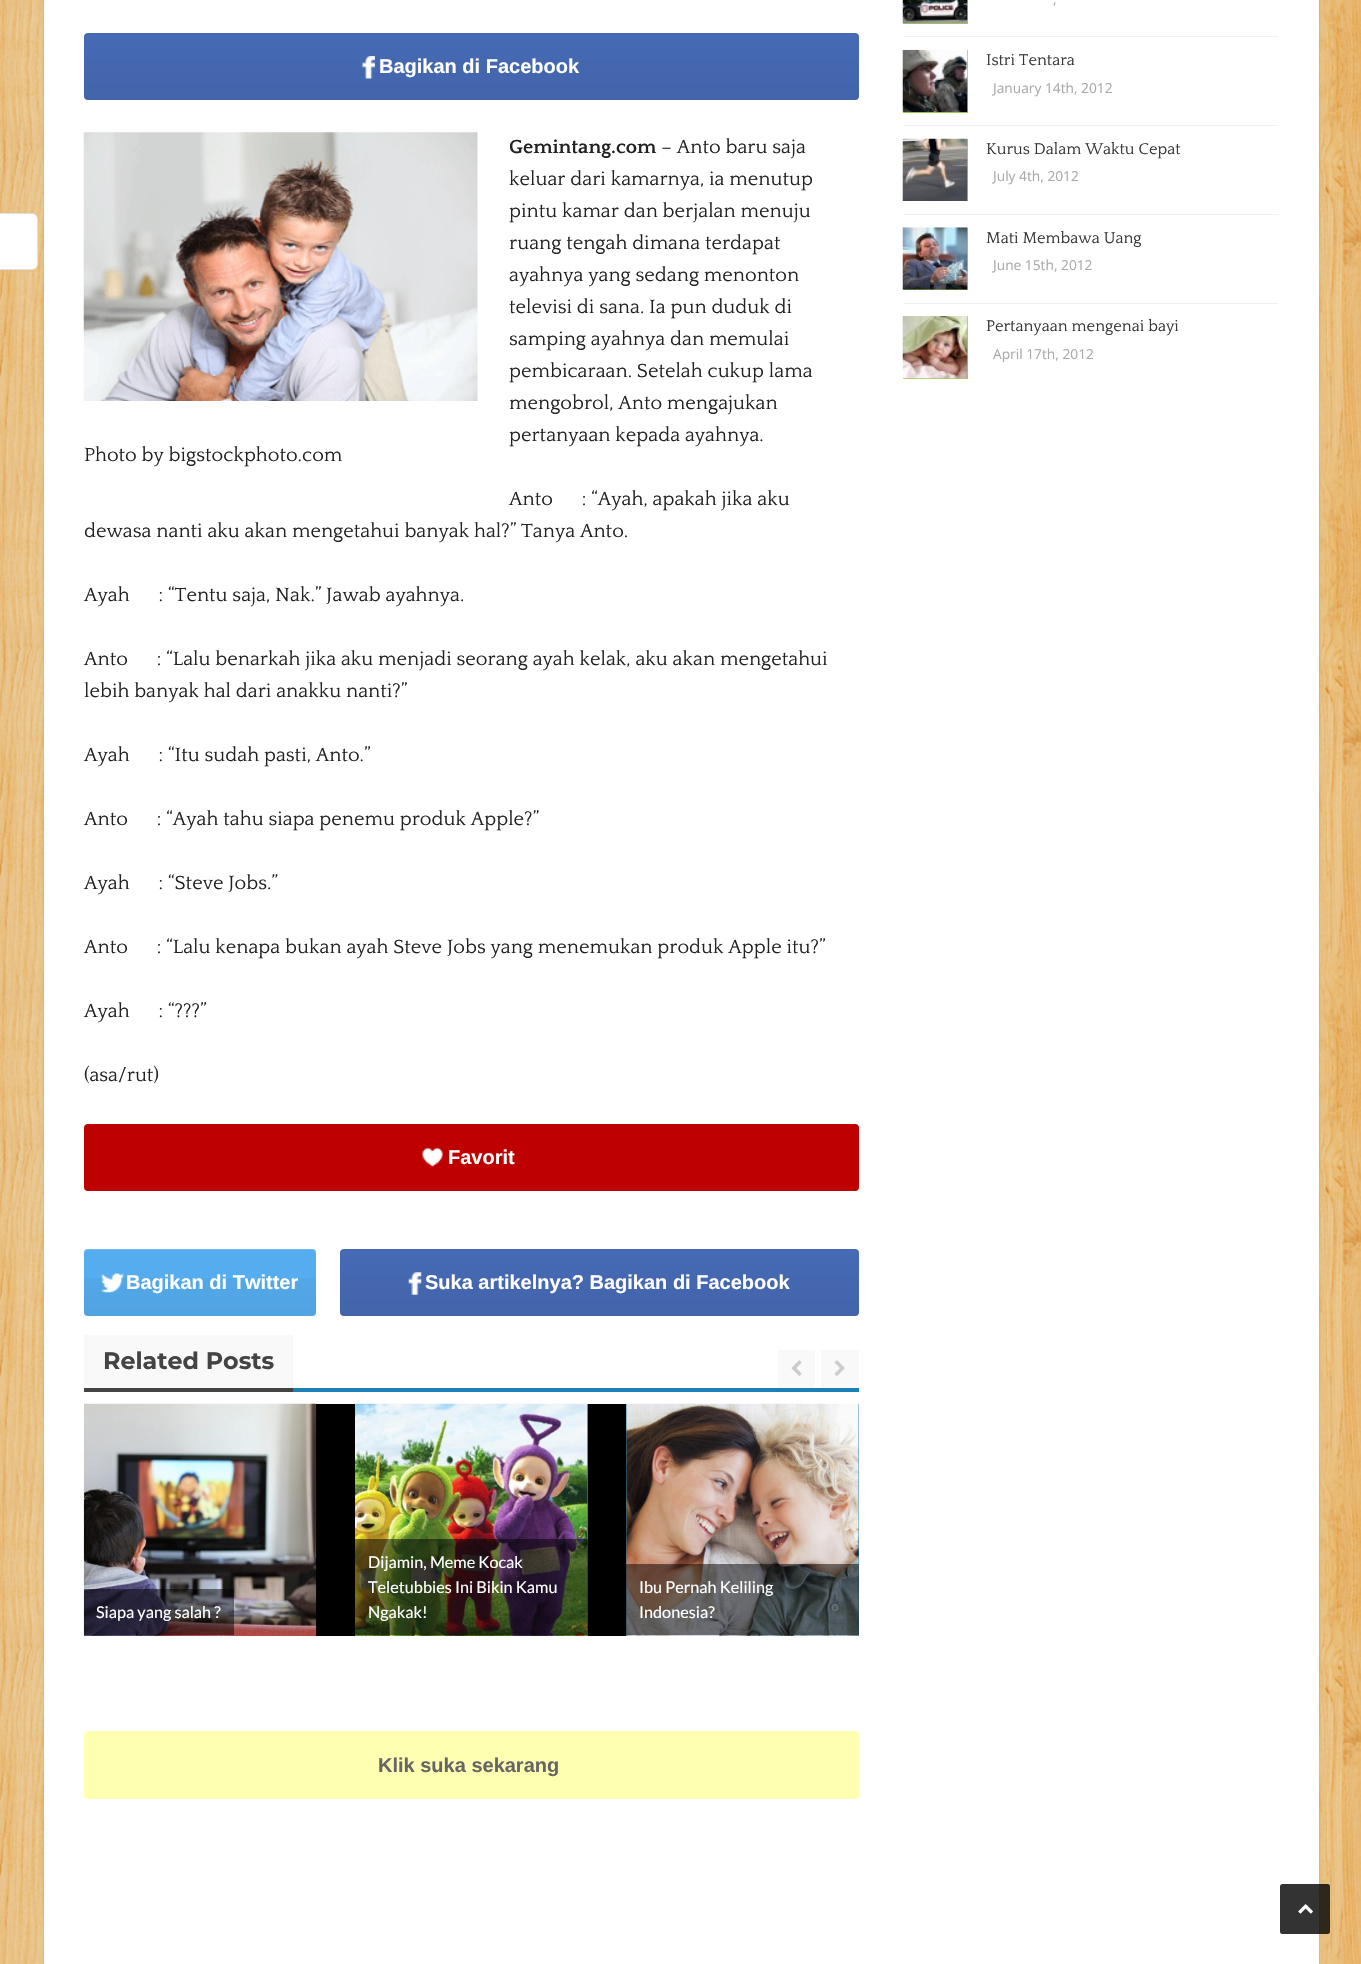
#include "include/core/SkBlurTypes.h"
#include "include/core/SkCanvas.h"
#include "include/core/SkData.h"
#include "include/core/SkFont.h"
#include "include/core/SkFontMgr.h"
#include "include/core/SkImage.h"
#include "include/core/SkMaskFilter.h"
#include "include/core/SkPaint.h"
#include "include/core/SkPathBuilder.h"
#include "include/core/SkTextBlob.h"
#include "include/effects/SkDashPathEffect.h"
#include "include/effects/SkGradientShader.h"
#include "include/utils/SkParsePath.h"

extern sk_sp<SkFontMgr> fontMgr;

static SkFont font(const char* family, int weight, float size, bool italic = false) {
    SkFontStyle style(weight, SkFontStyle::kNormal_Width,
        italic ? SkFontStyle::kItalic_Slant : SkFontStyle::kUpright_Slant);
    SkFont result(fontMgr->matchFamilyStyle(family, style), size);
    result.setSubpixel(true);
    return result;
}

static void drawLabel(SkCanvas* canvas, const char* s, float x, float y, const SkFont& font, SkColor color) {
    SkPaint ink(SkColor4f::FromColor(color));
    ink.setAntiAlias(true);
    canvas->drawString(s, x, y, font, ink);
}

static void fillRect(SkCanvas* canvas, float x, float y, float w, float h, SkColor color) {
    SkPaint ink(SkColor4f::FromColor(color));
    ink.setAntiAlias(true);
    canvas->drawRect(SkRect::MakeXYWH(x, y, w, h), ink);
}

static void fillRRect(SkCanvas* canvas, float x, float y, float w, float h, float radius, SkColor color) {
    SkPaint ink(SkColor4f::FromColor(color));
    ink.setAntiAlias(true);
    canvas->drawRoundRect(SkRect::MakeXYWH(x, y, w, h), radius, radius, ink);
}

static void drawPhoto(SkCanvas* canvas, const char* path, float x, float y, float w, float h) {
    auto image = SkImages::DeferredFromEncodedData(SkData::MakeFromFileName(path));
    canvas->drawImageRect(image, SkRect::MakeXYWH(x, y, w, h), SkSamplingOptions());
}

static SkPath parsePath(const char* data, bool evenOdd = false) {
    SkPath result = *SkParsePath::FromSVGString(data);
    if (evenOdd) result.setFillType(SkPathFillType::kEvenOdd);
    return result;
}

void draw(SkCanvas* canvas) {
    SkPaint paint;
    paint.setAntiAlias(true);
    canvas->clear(0xFFFFFFFF);
    drawPhoto(canvas, "assets/img1.png", 0, 0, 1361, 1964);
    paint.setColor(0x26000000);
    paint.setMaskFilter(SkMaskFilter::MakeBlur(kNormal_SkBlurStyle, 1));
    canvas->drawRect(SkRect::MakeXYWH(44, -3, 1275, 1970), paint);
    paint.setMaskFilter(nullptr);
    fillRect(canvas, 44, 0, 1275, 1964, 0xFFFFFFFF);
    {
        const SkColor colors[] = {0xFF466AB5, 0xFF4264AA};
        const float stops[] = {0, 1};
        const SkPoint ends[] = {{471, 32}, {471, 100}};
        paint.setShader(SkGradientShader::MakeLinear(ends, colors, stops, 2, SkTileMode::kClamp));
        paint.setAlpha(255);
    }
    canvas->drawRoundRect(SkRect::MakeXYWH(84, 33, 775, 67), 4, 4, paint);
    drawPhoto(canvas, "assets/img2.png", 362, 56, 13, 23);
    SkFont font1 = font("Liberation Sans", 700, 20);
    drawLabel(canvas, "Bagikan di Facebook", 379, 73, font1, 0xFFFFFFFF);
    paint.setShader(nullptr);
    paint.setColor(0xFFFFFFFF);
    canvas->drawRoundRect(SkRect::MakeXYWH(-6.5f, 213.5f, 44, 56), 5.5f, 5.5f, paint);
    paint.setStroke(true);
    paint.setStrokeWidth(1);
    paint.setColor(0xFFDFDFDF);
    canvas->drawRoundRect(SkRect::MakeXYWH(-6.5f, 213.5f, 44, 56), 5.5f, 5.5f, paint);
    SkFont font2 = font("Quattrocento", 700, 20);
    drawLabel(canvas, "Gemintang.com", 509, 153, font2, 0xFF222222);
    SkFont font3 = font("Quattrocento", 400, 20);
    drawLabel(canvas, "– Anto baru saja", 661, 153, font3, 0xFF222222);
    drawLabel(canvas, "keluar dari kamarnya, ia menutup", 509, 185, font3, 0xFF222222);
    drawLabel(canvas, "pintu kamar dan berjalan menuju", 509, 217, font3, 0xFF222222);
    drawLabel(canvas, "ruang tengah dimana terdapat", 509, 249, font3, 0xFF222222);
    drawLabel(canvas, "ayahnya yang sedang menonton", 509, 281, font3, 0xFF222222);
    drawLabel(canvas, "televisi di sana. Ia pun duduk di", 509, 313, font3, 0xFF222222);
    drawLabel(canvas, "samping ayahnya dan memulai", 509, 345, font3, 0xFF222222);
    drawLabel(canvas, "pembicaraan. Setelah cukup lama", 509, 377, font3, 0xFF222222);
    drawLabel(canvas, "mengobrol, Anto mengajukan", 509, 409, font3, 0xFF222222);
    drawLabel(canvas, "pertanyaan kepada ayahnya.", 509, 441, font3, 0xFF222222);
    drawPhoto(canvas, "assets/img3.png", 83, 132, 395, 269);
    drawLabel(canvas, "Photo by bigstockphoto.com", 84, 461, font3, 0xFF222222);
    drawLabel(canvas, "Anto      : “Ayah, apakah jika aku", 509, 505, font3, 0xFF222222);
    drawLabel(canvas, "dewasa nanti aku akan mengetahui banyak hal?” Tanya Anto.", 84, 537, font3, 0xFF222222);
    drawLabel(canvas, "Ayah      : “Tentu saja, Nak.” Jawab ayahnya.", 84, 601, font3, 0xFF222222);
    drawLabel(canvas, "Anto      : “Lalu benarkah jika aku menjadi seorang ayah kelak, aku akan mengetahui", 84, 665, font3, 0xFF222222);
    drawLabel(canvas, "lebih banyak hal dari anakku nanti?”", 84, 697, font3, 0xFF222222);
    drawLabel(canvas, "Ayah      : “Itu sudah pasti, Anto.”", 84, 761, font3, 0xFF222222);
    drawLabel(canvas, "Anto      : “Ayah tahu siapa penemu produk Apple?”", 84, 825, font3, 0xFF222222);
    drawLabel(canvas, "Ayah      : “Steve Jobs.”", 84, 889, font3, 0xFF222222);
    drawLabel(canvas, "Anto      : “Lalu kenapa bukan ayah Steve Jobs yang menemukan produk Apple itu?”", 84, 953, font3, 0xFF222222);
    drawLabel(canvas, "Ayah      : “?\077?”", 84, 1017, font3, 0xFF222222);
    drawLabel(canvas, "(asa/rut)", 84, 1081, font3, 0xFF222222);
    fillRRect(canvas, 84, 1124, 775, 67, 4, 0xFFBE0000);
    drawPhoto(canvas, "assets/img4.png", 422, 1147, 21, 20);
    drawLabel(canvas, "Favorit", 448, 1164, font1, 0xFFFFFFFF);
    fillRRect(canvas, 84, 1249, 232, 67, 4, 0xFF55ACEE);
    paint.setStroke(false);
    {
        const SkColor colors[] = {0x00000000, 0x0D000000};
        const float stops[] = {0, 1};
        const SkPoint ends[] = {{200, 1249}, {200, 1316}};
        paint.setShader(SkGradientShader::MakeLinear(ends, colors, stops, 2, SkTileMode::kClamp));
        paint.setAlpha(255);
    }
    canvas->drawRect(SkRect::MakeXYWH(84, 1278, 232, 38), paint);
    paint.setShader(nullptr);
    paint.setColor(0x26FFFFFF);
    canvas->drawPath(parsePath("M88 1250H312C315 1250 316 1252 316 1254C316 1251 315 1249 312 1249H88C85 1249 84 1251 84 1254C84 1252 85 1250 88 1250Z"), paint);
    drawPhoto(canvas, "assets/img5.png", 101, 1273, 23, 20);
    drawLabel(canvas, "Bagikan di Twitter", 126, 1289, font1, 0xFFFFFFFF);
    {
        const SkColor colors[] = {0xFF466AB5, 0xFF4264AA};
        const float stops[] = {0, 1};
        const SkPoint ends[] = {{599, 1249}, {599, 1316}};
        paint.setShader(SkGradientShader::MakeLinear(ends, colors, stops, 2, SkTileMode::kClamp));
        paint.setAlpha(255);
    }
    canvas->drawRoundRect(SkRect::MakeXYWH(340, 1249, 519, 67), 4, 4, paint);
    drawPhoto(canvas, "assets/img6.png", 408, 1272, 14, 23);
    drawLabel(canvas, "Suka artikelnya? Bagikan di Facebook", 425, 1289, font1, 0xFFFFFFFF);
    fillRect(canvas, 293, 1388, 566, 4, 0xFF1A80B6);
    fillRect(canvas, 84, 1335, 209, 53, 0xFFF9F9F9);
    fillRect(canvas, 84, 1388, 209, 4, 0xFF444444);
    SkFont font4 = font("Montserrat", 700, 23.75f);
    drawLabel(canvas, "Related Posts", 103, 1369, font4, 0xFF444444);
    fillRect(canvas, 778, 1350, 37, 38, 0xFFF9F9F9);
    drawPhoto(canvas, "assets/img7.png", 791, 1360, 11, 16);
    fillRect(canvas, 821, 1350, 38, 38, 0xFFF9F9F9);
    drawPhoto(canvas, "assets/img8.png", 834, 1360, 11, 16);
    fillRect(canvas, 316, 1404, 310, 232, 0xFF000000);
    drawPhoto(canvas, "assets/img9.png", 83, 1403, 234, 233);
    fillRect(canvas, 84, 1589, 150, 46, 0x80000000);
    SkFont font5 = font("Lato", 400, 16.25f);
    drawLabel(canvas, "Siapa yang salah ?", 96, 1618, font5, 0xFFFFFFFF);
    fillRect(canvas, 587, 1404, 1, 232, 0xFF1A80B6);
    drawPhoto(canvas, "assets/img10.png", 355, 1403, 233, 233);
    fillRect(canvas, 355, 1539, 233, 96, 0x80000000);
    drawLabel(canvas, "Dijamin, Meme Kocak", 368, 1568, font5, 0xFFFFFFFF);
    drawLabel(canvas, "Teletubbies Ini Bikin Kamu", 368, 1593, font5, 0xFFFFFFFF);
    drawLabel(canvas, "Ngakak!", 368, 1618, font5, 0xFFFFFFFF);
    fillRect(canvas, 626, 1404, 233, 232, 0xFF1A80B6);
    drawPhoto(canvas, "assets/img11.png", 626, 1403, 233, 233);
    fillRect(canvas, 626, 1564, 233, 71, 0x80000000);
    drawLabel(canvas, "Ibu Pernah Keliling", 639, 1593, font5, 0xFFFFFFFF);
    drawLabel(canvas, "Indonesia?", 639, 1618, font5, 0xFFFFFFFF);
    fillRRect(canvas, 84, 1731, 775, 68, 4, 0xFFFFFFB1);
    drawLabel(canvas, "Klik suka sekarang", 378, 1772, font1, 0xFF666666);
    fillRect(canvas, 903, 36, 375, 1, 0xFFF0F0F0);
    fillRect(canvas, 903, 0, 65, 24, 0xFFA0CE4E);
    drawPhoto(canvas, "assets/img12.png", 902, 0, 66, 24);
    SkFont font6 = font("Open Sans", 400, 13.75f);
    drawLabel(canvas, ",", 1053, 4, font6, 0xFFAAAAAA);
    fillRect(canvas, 903, 125, 375, 1, 0xFFF0F0F0);
    fillRect(canvas, 903, 50, 65, 63, 0xFFA0CE4E);
    drawPhoto(canvas, "assets/img13.png", 902, 49, 66, 64);
    SkFont font7 = font("Quattrocento", 400, 16.25f);
    drawLabel(canvas, "Istri Tentara", 986, 65, font7, 0xFF343434);
    drawLabel(canvas, "January 14th, 2012", 993, 93, font6, 0xFFAAAAAA);
    fillRect(canvas, 903, 214, 375, 1, 0xFFF0F0F0);
    fillRect(canvas, 967, 139, 1, 62, 0xFFA0CE4E);
    drawPhoto(canvas, "assets/img14.png", 902, 138, 66, 63);
    drawLabel(canvas, "Kurus Dalam Waktu Cepat", 986, 154, font7, 0xFF343434);
    drawLabel(canvas, "July 4th, 2012", 993, 181, font6, 0xFFAAAAAA);
    fillRect(canvas, 903, 303, 375, 1, 0xFFF0F0F0);
    fillRect(canvas, 903, 228, 65, 62, 0xFFA0CE4E);
    drawPhoto(canvas, "assets/img15.png", 902, 227, 66, 63);
    drawLabel(canvas, "Mati Membawa Uang", 986, 243, font7, 0xFF343434);
    drawLabel(canvas, "June 15th, 2012", 993, 270, font6, 0xFFAAAAAA);
    fillRect(canvas, 903, 316, 65, 63, 0xFFA0CE4E);
    drawPhoto(canvas, "assets/img16.png", 902, 316, 66, 63);
    drawLabel(canvas, "Pertanyaan mengenai bayi", 986, 331, font7, 0xFF343434);
    drawLabel(canvas, "April 17th, 2012", 993, 359, font6, 0xFFAAAAAA);
    fillRRect(canvas, 1280, 1884, 50, 50, 2.5f, 0xCC000000);
    drawPhoto(canvas, "assets/img17.png", 1298, 1904, 15, 10);
}
